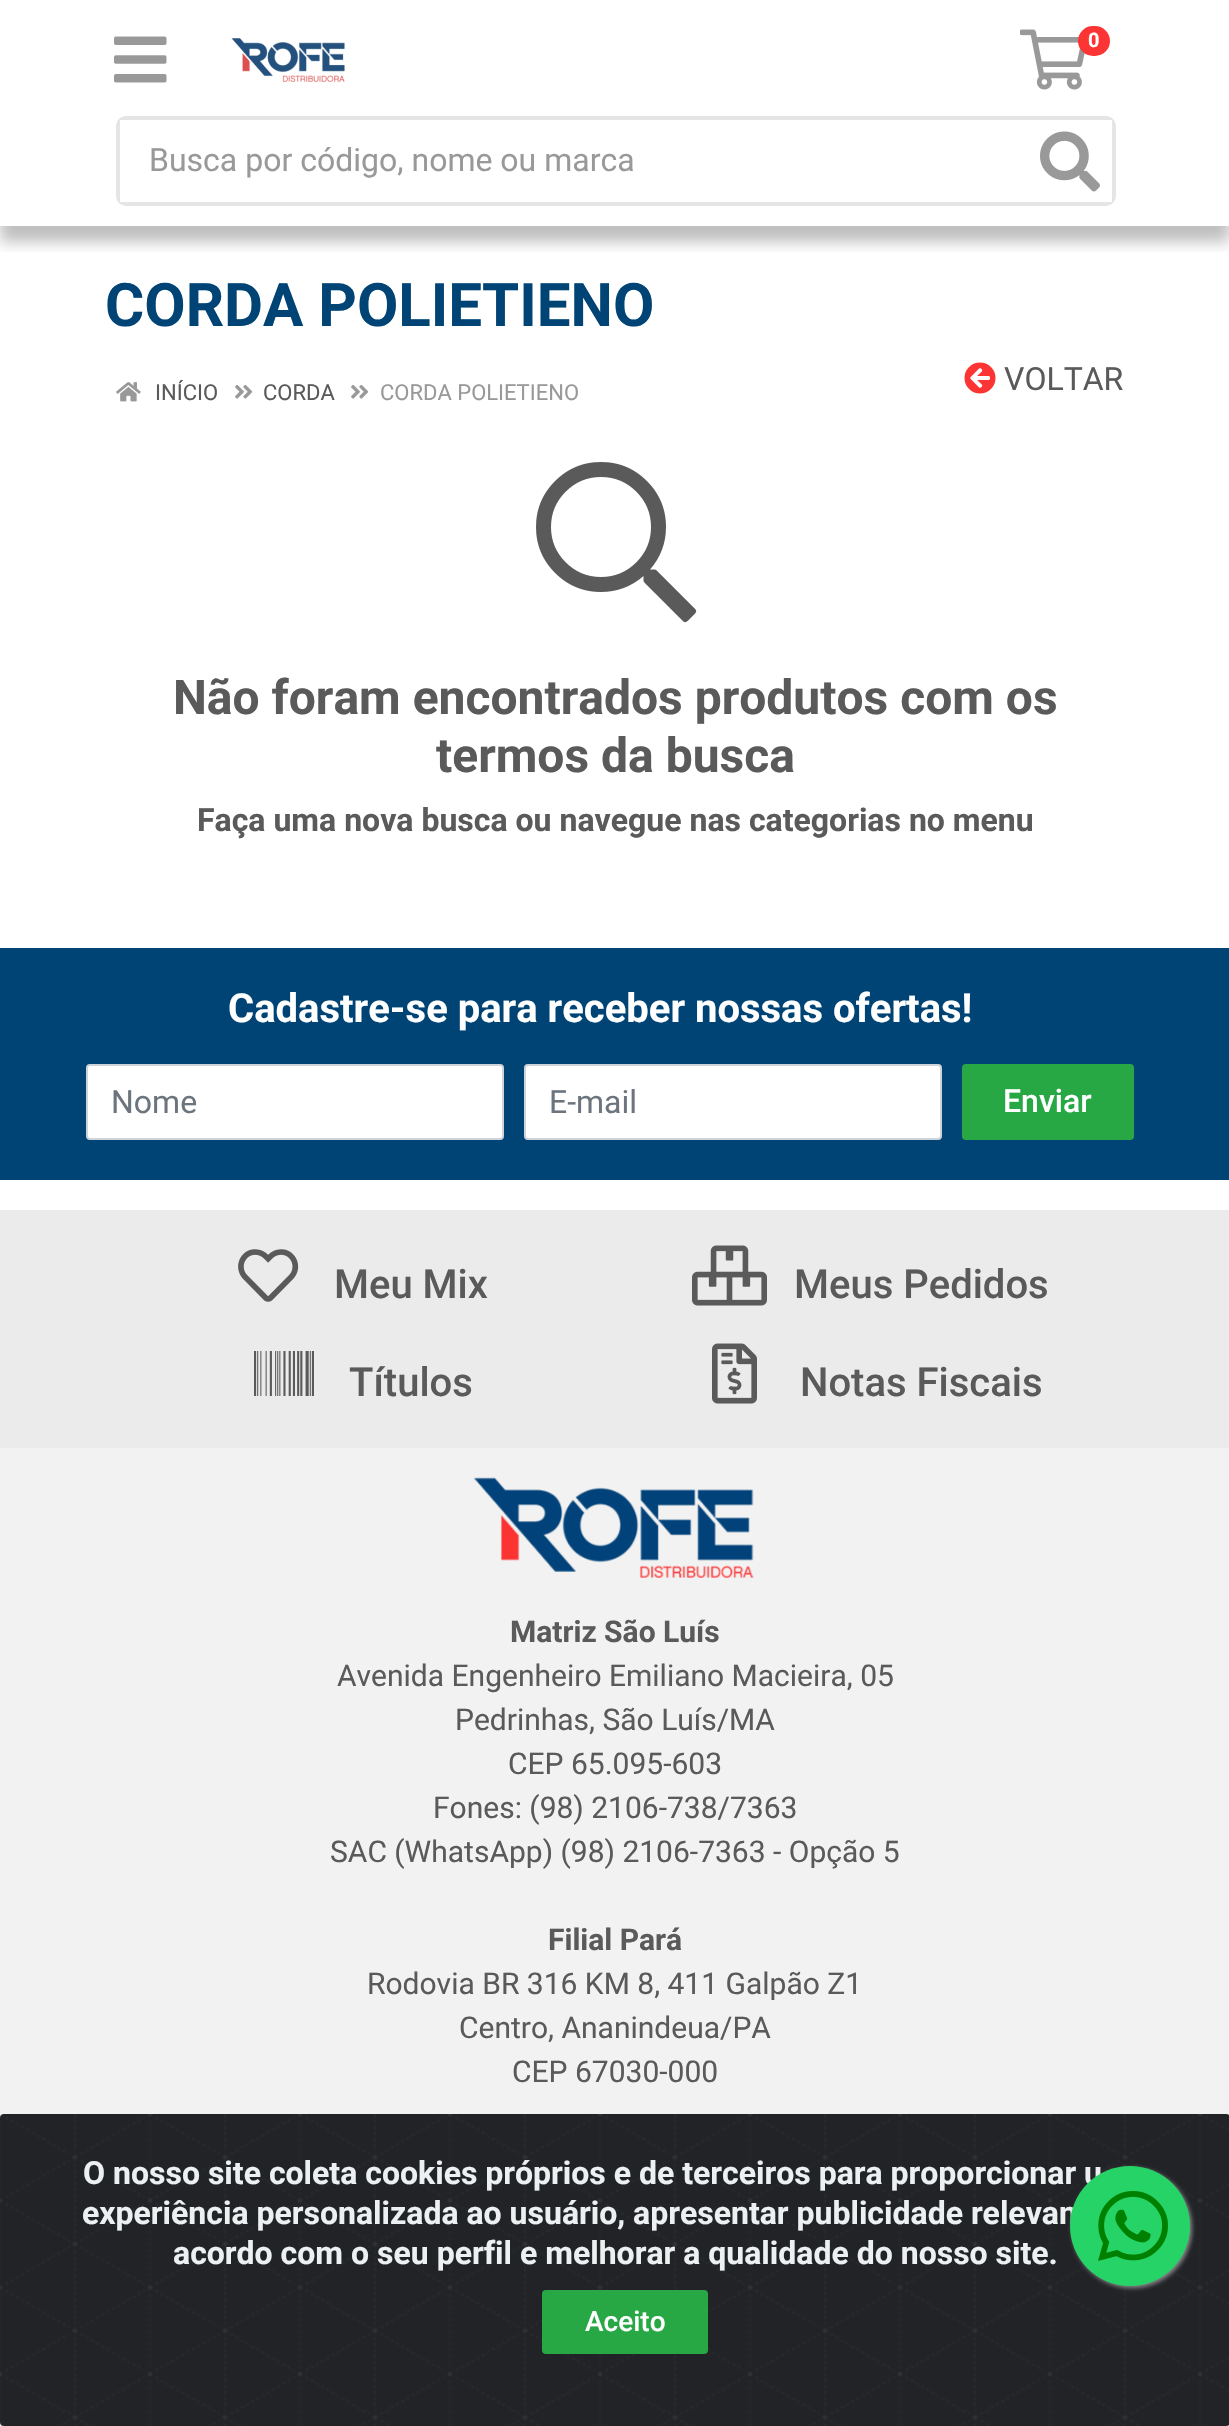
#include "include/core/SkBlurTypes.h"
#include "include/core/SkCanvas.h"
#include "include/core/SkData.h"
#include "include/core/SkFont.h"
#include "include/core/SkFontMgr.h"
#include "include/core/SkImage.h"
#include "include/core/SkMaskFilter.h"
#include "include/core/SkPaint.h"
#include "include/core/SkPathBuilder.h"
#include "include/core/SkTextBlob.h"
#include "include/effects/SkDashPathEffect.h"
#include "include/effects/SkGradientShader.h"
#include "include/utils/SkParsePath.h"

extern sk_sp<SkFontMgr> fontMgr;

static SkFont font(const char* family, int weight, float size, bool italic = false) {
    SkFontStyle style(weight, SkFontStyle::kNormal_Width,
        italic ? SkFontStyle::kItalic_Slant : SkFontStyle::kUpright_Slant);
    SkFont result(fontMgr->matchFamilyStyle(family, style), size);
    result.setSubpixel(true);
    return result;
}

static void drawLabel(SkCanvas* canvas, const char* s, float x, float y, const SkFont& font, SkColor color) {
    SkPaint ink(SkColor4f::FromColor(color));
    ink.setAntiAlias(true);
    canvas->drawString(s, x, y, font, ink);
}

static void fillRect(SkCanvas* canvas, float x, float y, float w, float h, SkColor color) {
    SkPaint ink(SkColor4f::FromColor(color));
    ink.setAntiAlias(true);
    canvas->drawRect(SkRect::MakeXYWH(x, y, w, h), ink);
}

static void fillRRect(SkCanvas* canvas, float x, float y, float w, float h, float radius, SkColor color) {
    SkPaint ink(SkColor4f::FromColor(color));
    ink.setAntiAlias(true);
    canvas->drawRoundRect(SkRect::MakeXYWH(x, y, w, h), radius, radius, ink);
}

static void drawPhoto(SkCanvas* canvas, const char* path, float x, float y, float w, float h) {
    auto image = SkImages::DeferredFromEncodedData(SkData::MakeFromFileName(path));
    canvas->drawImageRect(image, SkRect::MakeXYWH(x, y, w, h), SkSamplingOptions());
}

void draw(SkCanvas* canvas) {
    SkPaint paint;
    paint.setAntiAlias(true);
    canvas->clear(0xFFFFFFFF);
    drawPhoto(canvas, "assets/img1.png", 114, 36, 53, 47);
    drawPhoto(canvas, "assets/img2.png", 231, 38, 114, 44);
    drawPhoto(canvas, "assets/img3.png", 1020, 29, 65, 61);
    fillRRect(canvas, 1078, 26, 32, 30, 15, 0xFFFC3433);
    SkFont font1 = font("Roboto", 700, 20);
    drawLabel(canvas, "0", 1088, 47, font1, 0xFFFFFFFF);
    canvas->save();
    canvas->clipRect(SkRect::MakeXYWH(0, 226, 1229, 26));
    paint.setColor(0x40000000);
    paint.setMaskFilter(SkMaskFilter::MakeBlur(kNormal_SkBlurStyle, 7));
    canvas->drawRect(SkRect::MakeXYWH(0, 132, 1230, 110), paint);
    paint.setMaskFilter(nullptr);
    canvas->restore();
    paint.setStroke(true);
    paint.setStrokeWidth(4);
    paint.setColor(0xFFE5E5E5);
    canvas->drawRoundRect(SkRect::MakeXYWH(118, 118, 996, 86), 8, 8, paint);
    fillRect(canvas, 120, 120, 5, 82, 0xFFFFFFFF);
    SkFont font2 = font("Roboto", 400, 32);
    drawLabel(canvas, "Busca por código, nome ou marca", 149, 171, font2, 0xFF999999);
    fillRect(canvas, 1107, 120, 5, 82, 0xFFFFFFFF);
    drawPhoto(canvas, "assets/img4.png", 1040, 131, 60, 61);
    SkFont font3 = font("Roboto", 700, 60);
    drawLabel(canvas, "CORDA POLIETIENO", 105, 326, font3, 0xFF004476);
    drawPhoto(canvas, "assets/img5.png", 116, 382, 25, 20);
    SkFont font4 = font("Roboto", 400, 22);
    drawLabel(canvas, "INÍCIO", 155, 400, font4, 0xFF5A5A5A);
    drawPhoto(canvas, "assets/img6.png", 235, 384, 18, 15);
    drawLabel(canvas, "CORDA", 263, 400, font4, 0xFF5A5A5A);
    drawPhoto(canvas, "assets/img6.png", 351, 384, 18, 15);
    drawLabel(canvas, "CORDA POLIETIENO", 380, 400, font4, 0xFF999999);
    drawPhoto(canvas, "assets/img7.png", 964, 362, 32, 32);
    drawLabel(canvas, "VOLTAR", 1004, 390, font2, 0xFF5A5A5A);
    drawPhoto(canvas, "assets/img8.png", 536, 462, 161, 161);
    SkFont font5 = font("Roboto", 700, 48);
    drawLabel(canvas, "Não foram encontrados produtos com os", 173, 714, font5, 0xFF5A5A5A);
    drawLabel(canvas, "termos da busca", 436, 772, font5, 0xFF5A5A5A);
    SkFont font6 = font("Roboto", 700, 32);
    drawLabel(canvas, "Faça uma nova busca ou navegue nas categorias no menu", 197, 831, font6, 0xFF5A5A5A);
    fillRect(canvas, 0, 948, 1229, 232, 0xFF004476);
    SkFont font7 = font("Roboto", 700, 40);
    drawLabel(canvas, "Cadastre-se para receber nossas ofertas!", 228, 1022, font7, 0xFFFFFFFF);
    paint.setStroke(false);
    paint.setColor(0xFFFFFFFF);
    canvas->drawRoundRect(SkRect::MakeXYWH(87, 1065, 416, 74), 3, 3, paint);
    paint.setStroke(true);
    paint.setStrokeWidth(2);
    paint.setColor(0xFFCED4DA);
    canvas->drawRoundRect(SkRect::MakeXYWH(87, 1065, 416, 74), 3, 3, paint);
    drawLabel(canvas, "Nome", 111, 1113, font2, 0xFF6C757D);
    paint.setStroke(false);
    paint.setColor(0xFFFFFFFF);
    canvas->drawRoundRect(SkRect::MakeXYWH(525, 1065, 416, 74), 3, 3, paint);
    paint.setStroke(true);
    paint.setColor(0xFFCED4DA);
    canvas->drawRoundRect(SkRect::MakeXYWH(525, 1065, 416, 74), 3, 3, paint);
    drawLabel(canvas, "E-mail", 549, 1113, font2, 0xFF6C757D);
    paint.setStroke(false);
    paint.setColor(0xFF28A745);
    canvas->drawRoundRect(SkRect::MakeXYWH(963, 1065, 170, 74), 3, 3, paint);
    paint.setStroke(true);
    canvas->drawRoundRect(SkRect::MakeXYWH(963, 1065, 170, 74), 3, 3, paint);
    SkFont font8 = font("Roboto", 500, 32);
    drawLabel(canvas, "Enviar", 1003, 1112, font8, 0xFFFFFFFF);
    fillRect(canvas, 0, 1210, 1229, 238, 0xFFEBEBEB);
    drawPhoto(canvas, "assets/img9.png", 238, 1249, 61, 53);
    SkFont font9 = font("Roboto", 500, 40);
    drawLabel(canvas, "Meu Mix", 334, 1298, font9, 0xFF5A5A5A);
    drawPhoto(canvas, "assets/img10.png", 692, 1245, 75, 61);
    drawLabel(canvas, "Meus Pedidos", 794, 1298, font9, 0xFF5A5A5A);
    drawPhoto(canvas, "assets/img11.png", 254, 1351, 60, 45);
    drawLabel(canvas, "Títulos", 349, 1396, font9, 0xFF5A5A5A);
    drawPhoto(canvas, "assets/img12.png", 712, 1343, 45, 61);
    drawLabel(canvas, "Notas Fiscais", 800, 1396, font9, 0xFF5A5A5A);
    fillRect(canvas, 0, 1448, 1229, 978, 0xFFF2F2F2);
    drawPhoto(canvas, "assets/img13.png", 473, 1477, 281, 101);
    SkFont font10 = font("Roboto", 700, 30);
    drawLabel(canvas, "Matriz São Luís", 510, 1642, font10, 0xFF5A5A5A);
    SkFont font11 = font("Roboto", 400, 30);
    drawLabel(canvas, "Avenida Engenheiro Emiliano Macieira, 05", 337, 1686, font11, 0xFF5A5A5A);
    drawLabel(canvas, "Pedrinhas, São Luís/MA", 455, 1730, font11, 0xFF5A5A5A);
    drawLabel(canvas, "CEP 65.095-603", 508, 1774, font11, 0xFF5A5A5A);
    drawLabel(canvas, "Fones: (98) 2106-738/7363", 433, 1818, font11, 0xFF5A5A5A);
    drawLabel(canvas, "SAC (WhatsApp) (98) 2106-7363 - Opção 5", 330, 1862, font11, 0xFF5A5A5A);
    drawLabel(canvas, "Filial Pará", 548, 1950, font10, 0xFF5A5A5A);
    drawLabel(canvas, "Rodovia BR 316 KM 8, 411 Galpão Z1", 367, 1994, font11, 0xFF5A5A5A);
    drawLabel(canvas, "Centro, Ananindeua/PA", 459, 2038, font11, 0xFF5A5A5A);
    drawLabel(canvas, "CEP 67030-000", 512, 2082, font11, 0xFF5A5A5A);
    drawPhoto(canvas, "assets/img14.png", 0, 2114, 1229, 312);
    drawLabel(canvas, "O nosso site coleta cookies próprios e de terceiros para proporcionar u", 83, 2184, font6, 0xFFECF0F1);
    drawLabel(canvas, "experiência personalizada ao usuário, apresentar publicidade relevan", 82, 2224, font6, 0xFFECF0F1);
    drawLabel(canvas, "acordo com o seu perfil e melhorar a qualidade do nosso site.", 173, 2264, font6, 0xFFECF0F1);
    paint.setStroke(false);
    canvas->drawRoundRect(SkRect::MakeXYWH(543, 2291, 164, 62), 3, 3, paint);
    paint.setStroke(true);
    canvas->drawRoundRect(SkRect::MakeXYWH(543, 2291, 164, 62), 3, 3, paint);
    SkFont font12 = font("Roboto", 500, 28);
    drawLabel(canvas, "Aceito", 585, 2331, font12, 0xFFFFFFFF);
    paint.setStroke(false);
    paint.setColor(0xFF888888);
    paint.setMaskFilter(SkMaskFilter::MakeBlur(kNormal_SkBlurStyle, 2));
    canvas->drawRoundRect(SkRect::MakeXYWH(1072, 2168, 120, 120), 60, 60, paint);
    paint.setMaskFilter(nullptr);
    paint.setColor(0xFF25D366);
    canvas->drawCircle(1130, 2226, 60, paint);
    drawPhoto(canvas, "assets/img15.png", 1098, 2191, 70, 70);
}
